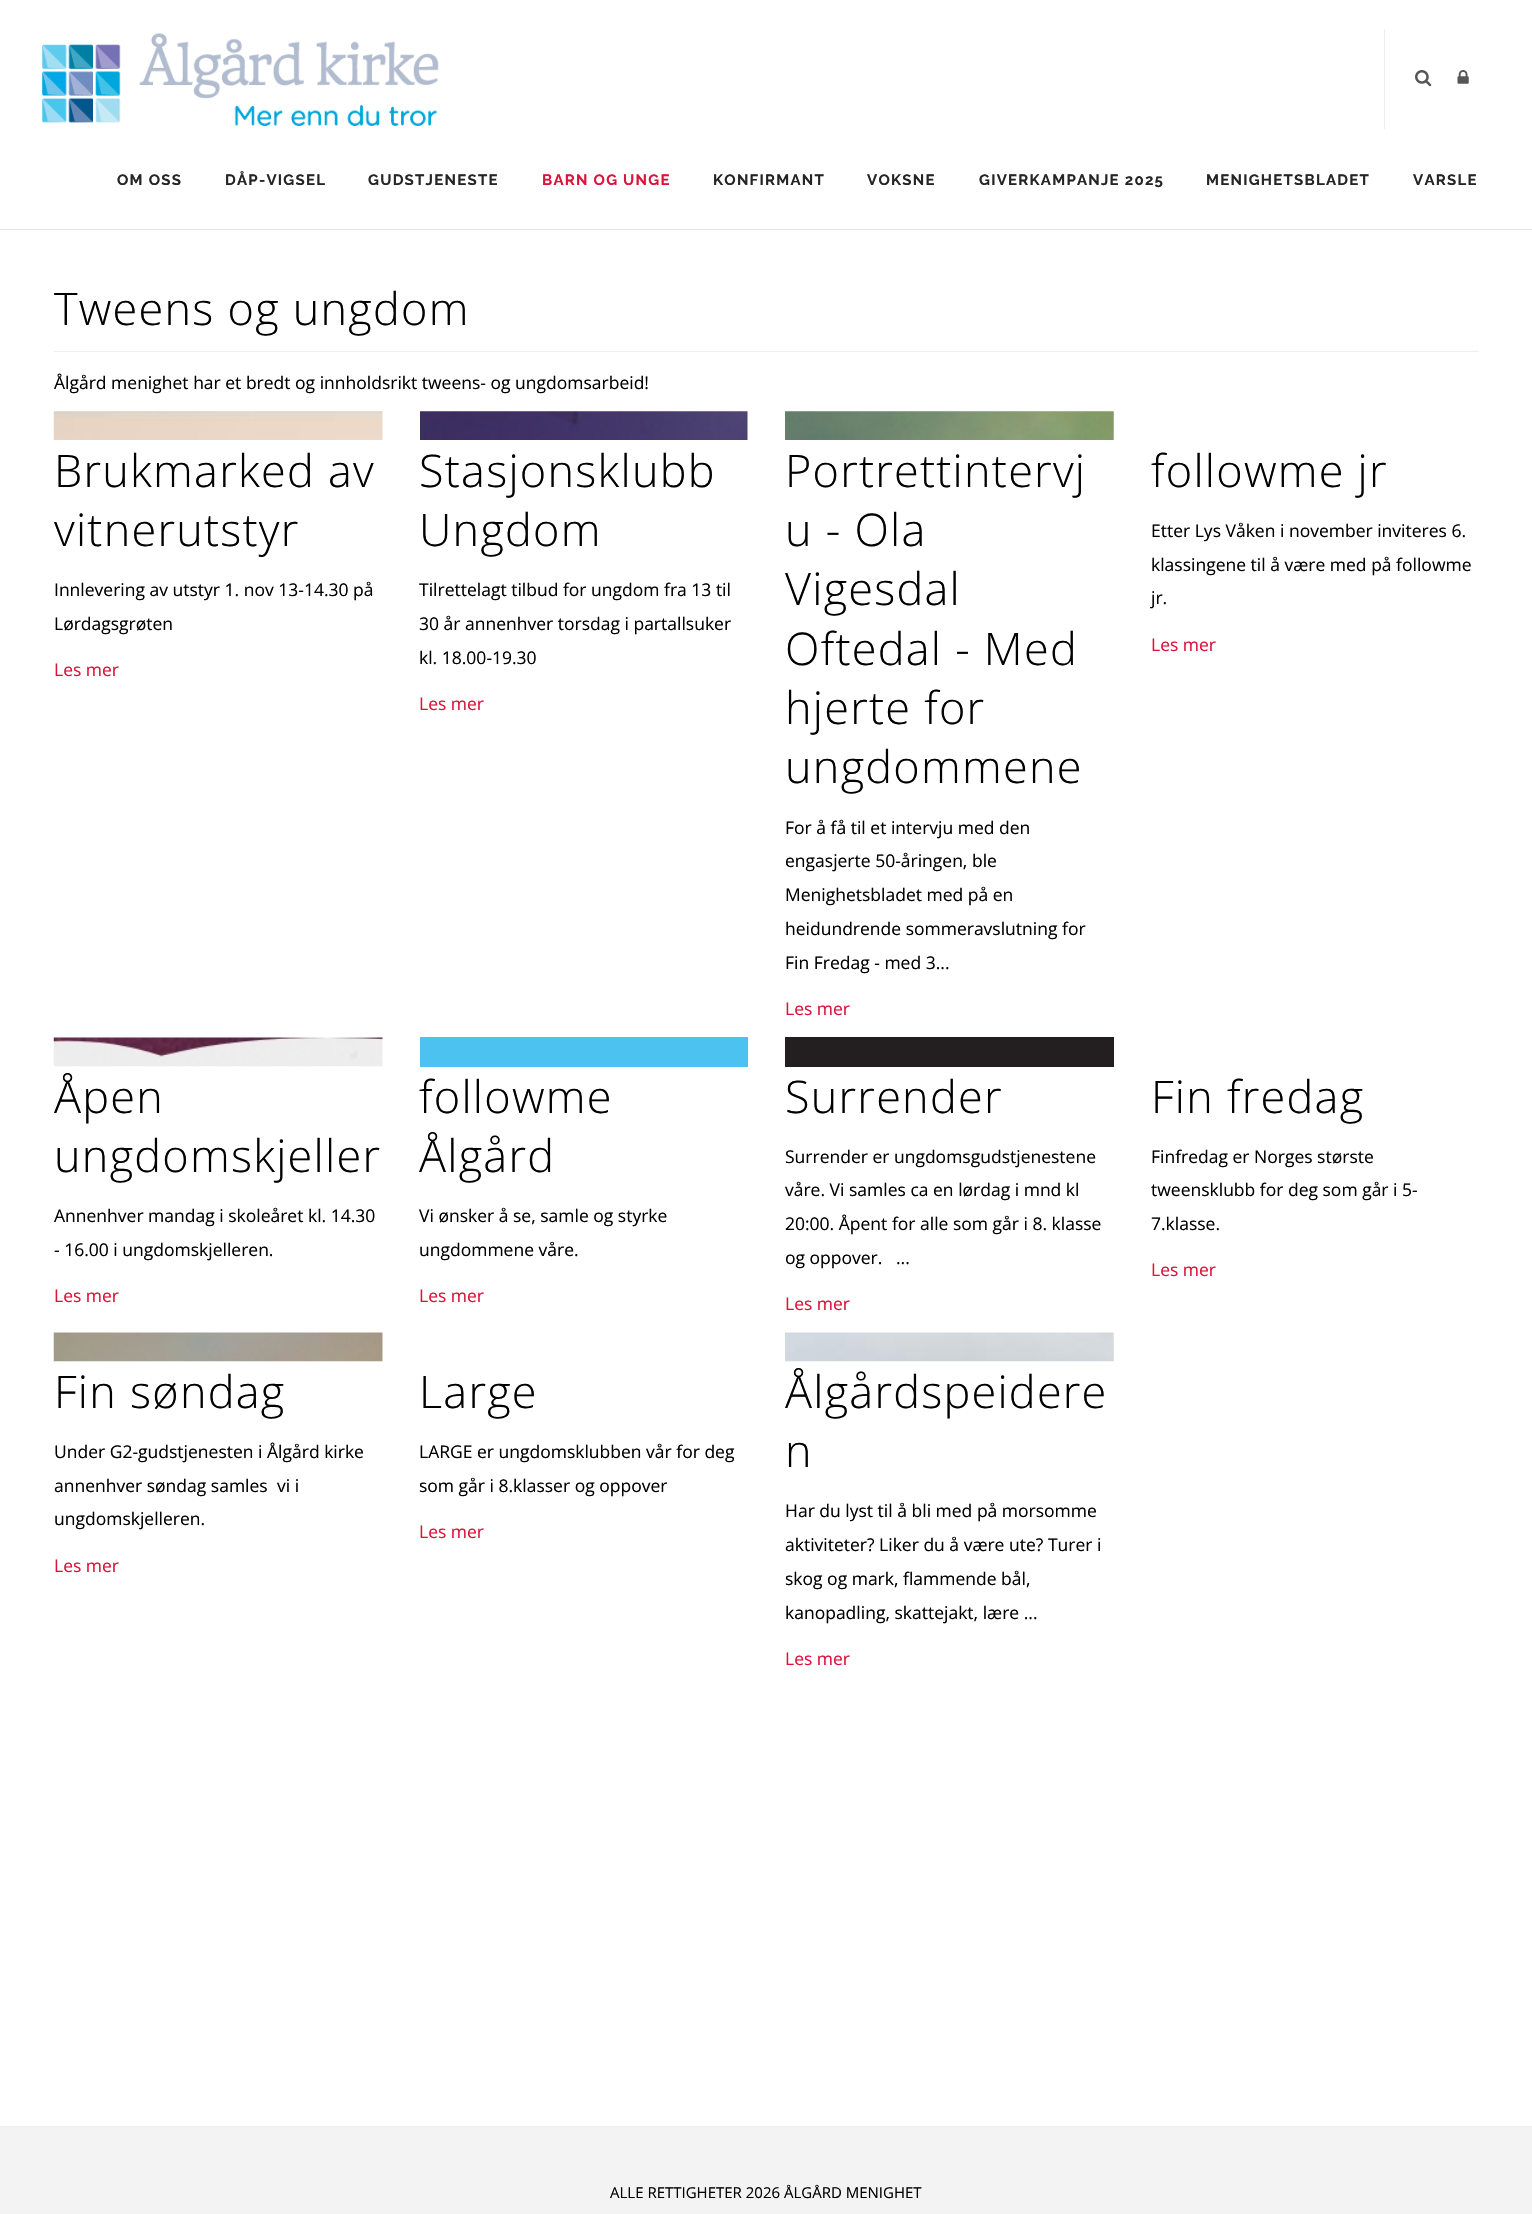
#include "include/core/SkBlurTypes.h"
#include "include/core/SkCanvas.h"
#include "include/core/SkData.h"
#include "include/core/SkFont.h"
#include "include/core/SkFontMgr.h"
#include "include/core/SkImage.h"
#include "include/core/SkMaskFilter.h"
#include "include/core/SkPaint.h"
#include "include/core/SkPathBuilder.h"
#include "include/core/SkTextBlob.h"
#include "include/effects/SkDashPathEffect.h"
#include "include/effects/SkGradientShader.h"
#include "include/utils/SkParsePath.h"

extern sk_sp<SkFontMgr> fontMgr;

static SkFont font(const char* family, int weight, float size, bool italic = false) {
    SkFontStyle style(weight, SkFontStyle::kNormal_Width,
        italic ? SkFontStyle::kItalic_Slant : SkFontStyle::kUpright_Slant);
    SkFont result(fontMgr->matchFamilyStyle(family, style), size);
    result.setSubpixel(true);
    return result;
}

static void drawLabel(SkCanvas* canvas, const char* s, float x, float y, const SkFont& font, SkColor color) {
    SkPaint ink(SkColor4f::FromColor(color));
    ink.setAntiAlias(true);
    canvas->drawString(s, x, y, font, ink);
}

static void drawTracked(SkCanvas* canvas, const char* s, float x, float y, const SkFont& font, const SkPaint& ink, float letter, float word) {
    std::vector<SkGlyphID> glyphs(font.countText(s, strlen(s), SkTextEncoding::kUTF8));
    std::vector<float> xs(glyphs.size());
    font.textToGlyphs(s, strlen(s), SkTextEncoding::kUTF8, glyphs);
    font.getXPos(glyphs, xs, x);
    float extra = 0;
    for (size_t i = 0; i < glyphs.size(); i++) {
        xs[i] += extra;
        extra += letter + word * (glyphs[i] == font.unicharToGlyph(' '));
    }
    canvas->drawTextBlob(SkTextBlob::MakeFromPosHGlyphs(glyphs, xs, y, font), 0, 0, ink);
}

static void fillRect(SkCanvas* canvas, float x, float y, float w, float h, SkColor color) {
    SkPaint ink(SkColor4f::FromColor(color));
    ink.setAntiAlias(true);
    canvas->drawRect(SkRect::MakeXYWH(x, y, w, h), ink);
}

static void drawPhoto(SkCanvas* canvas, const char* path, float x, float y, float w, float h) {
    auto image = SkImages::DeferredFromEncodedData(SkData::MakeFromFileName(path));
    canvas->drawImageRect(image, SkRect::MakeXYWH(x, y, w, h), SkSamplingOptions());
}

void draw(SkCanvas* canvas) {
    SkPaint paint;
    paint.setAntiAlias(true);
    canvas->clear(0xFFFFFFFF);
    fillRect(canvas, 0, 229, 1532, 1, 0xFFE3E3E3);
    drawPhoto(canvas, "assets/img1.png", 42, 33, 397, 93);
    fillRect(canvas, 1384, 29, 1, 100, 0xFFEEEEEE);
    drawPhoto(canvas, "assets/img2.png", 1415, 70, 17, 17);
    drawPhoto(canvas, "assets/img3.png", 1457, 70, 12, 14);
    SkFont font1 = font("Raleway", 700, 15);
    paint.setColor(0xFF252525);
    drawTracked(canvas, "OM OSS", 117, 185, font1, paint, 1.25f, 0);
    drawTracked(canvas, "DÅP-VIGSEL", 225, 185, font1, paint, 1.25f, 0);
    drawTracked(canvas, "GUDSTJENESTE", 368, 185, font1, paint, 1.25f, 0);
    paint.setColor(0xFFDC143C);
    drawTracked(canvas, "BARN OG UNGE", 542, 185, font1, paint, 1.25f, 0);
    paint.setColor(0xFF252525);
    drawTracked(canvas, "KONFIRMANT", 713, 185, font1, paint, 1.25f, 0);
    drawTracked(canvas, "VOKSNE", 867, 185, font1, paint, 1.25f, 0);
    drawTracked(canvas, "GIVERKAMPANJE 2025", 979, 185, font1, paint, 1.25f, 0);
    drawTracked(canvas, "MENIGHETSBLADET", 1206, 185, font1, paint, 1.25f, 0);
    drawTracked(canvas, "VARSLE", 1413, 185, font1, paint, 1.25f, 0);
    SkFont font2 = font("Open Sans", 300, 45);
    paint.setColor(0xFF000000);
    drawTracked(canvas, "Tweens og ungdom", 54, 325, font2, paint, 1.25f, 0);
    fillRect(canvas, 54, 351, 1425, 1, 0xFFEEEEEE);
    SkFont font3 = font("Open Sans", 400, 17.5f);
    drawLabel(canvas, "Ålgård menighet har et bredt og innholdsrikt tweens- og ungdomsarbeid!", 54, 389, font3, 0xFF000000);
    drawPhoto(canvas, "assets/img4.png", 53, 411, 330, 29);
    drawTracked(canvas, "Brukmarked av", 54, 487, font2, paint, 1.25f, 0);
    drawTracked(canvas, "vitnerutstyr", 54, 546, font2, paint, 1.25f, 0);
    drawLabel(canvas, "Innlevering av utstyr 1. nov 13-14.30 på", 54, 596, font3, 0xFF000000);
    drawLabel(canvas, "Lørdagsgrøten", 54, 630, font3, 0xFF000000);
    drawLabel(canvas, "Les mer", 54, 676, font3, 0xFFDC143C);
    drawPhoto(canvas, "assets/img5.png", 420, 411, 328, 29);
    drawTracked(canvas, "Stasjonsklubb", 419, 487, font2, paint, 1.25f, 0);
    drawTracked(canvas, "Ungdom", 419, 546, font2, paint, 1.25f, 0);
    drawLabel(canvas, "Tilrettelagt tilbud for ungdom fra 13 til", 419, 596, font3, 0xFF000000);
    drawLabel(canvas, "30 år annenhver torsdag i partallsuker", 419, 630, font3, 0xFF000000);
    drawLabel(canvas, "kl. 18.00-19.30", 419, 664, font3, 0xFF000000);
    drawLabel(canvas, "Les mer", 419, 710, font3, 0xFFDC143C);
    drawPhoto(canvas, "assets/img6.png", 785, 411, 329, 29);
    drawTracked(canvas, "Portrettintervj", 785, 487, font2, paint, 1.25f, 0);
    drawTracked(canvas, "u - Ola", 785, 546, font2, paint, 1.25f, 0);
    drawTracked(canvas, "Vigesdal", 785, 605, font2, paint, 1.25f, 0);
    drawTracked(canvas, "Oftedal - Med", 785, 665, font2, paint, 1.25f, 0);
    drawTracked(canvas, "hjerte for", 785, 724, font2, paint, 1.25f, 0);
    drawTracked(canvas, "ungdommene", 785, 783, font2, paint, 1.25f, 0);
    drawLabel(canvas, "For å få til et intervju med den", 785, 834, font3, 0xFF000000);
    drawLabel(canvas, "engasjerte 50-åringen, ble", 785, 867, font3, 0xFF000000);
    drawLabel(canvas, "Menighetsbladet med på en", 785, 901, font3, 0xFF000000);
    drawLabel(canvas, "heidundrende sommeravslutning for", 785, 935, font3, 0xFF000000);
    drawLabel(canvas, "Fin Fredag - med 3...", 785, 969, font3, 0xFF000000);
    drawLabel(canvas, "Les mer", 785, 1015, font3, 0xFFDC143C);
    drawTracked(canvas, "followme jr", 1151, 487, font2, paint, 1.25f, 0);
    drawLabel(canvas, "Etter Lys Våken i november inviteres 6.", 1151, 537, font3, 0xFF000000);
    drawLabel(canvas, "klassingene til å være med på followme", 1151, 571, font3, 0xFF000000);
    drawLabel(canvas, "jr.", 1151, 604, font3, 0xFF000000);
    drawLabel(canvas, "Les mer", 1151, 651, font3, 0xFFDC143C);
    drawPhoto(canvas, "assets/img7.png", 53, 1037, 330, 30);
    drawTracked(canvas, "Åpen", 54, 1113, font2, paint, 1.25f, 0);
    drawTracked(canvas, "ungdomskjeller", 54, 1172, font2, paint, 1.25f, 0);
    drawLabel(canvas, "Annenhver mandag i skoleåret kl. 14.30", 54, 1222, font3, 0xFF000000);
    drawLabel(canvas, "- 16.00 i ungdomskjelleren.", 54, 1256, font3, 0xFF000000);
    drawLabel(canvas, "Les mer", 54, 1302, font3, 0xFFDC143C);
    fillRect(canvas, 420, 1037, 328, 30, 0xFF4CC2F0);
    drawTracked(canvas, "followme", 419, 1113, font2, paint, 1.25f, 0);
    drawTracked(canvas, "Ålgård", 419, 1172, font2, paint, 1.25f, 0);
    drawLabel(canvas, "Vi ønsker å se, samle og styrke", 419, 1222, font3, 0xFF000000);
    drawLabel(canvas, "ungdommene våre.", 419, 1256, font3, 0xFF000000);
    drawLabel(canvas, "Les mer", 419, 1302, font3, 0xFFDC143C);
    fillRect(canvas, 785, 1037, 329, 30, 0xFF231F20);
    drawTracked(canvas, "Surrender", 785, 1113, font2, paint, 1.25f, 0);
    drawLabel(canvas, "Surrender er ungdomsgudstjenestene", 785, 1163, font3, 0xFF000000);
    drawLabel(canvas, "våre. Vi samles ca en lørdag i mnd kl", 785, 1196, font3, 0xFF000000);
    drawLabel(canvas, "20:00. Åpent for alle som går i 8. klasse", 785, 1230, font3, 0xFF000000);
    drawLabel(canvas, "og oppover.", 785, 1264, font3, 0xFF000000);
    drawLabel(canvas, "...", 896, 1264, font3, 0xFF000000);
    drawLabel(canvas, "Les mer", 785, 1310, font3, 0xFFDC143C);
    drawTracked(canvas, "Fin fredag", 1151, 1113, font2, paint, 1.25f, 0);
    drawLabel(canvas, "Finfredag er Norges største", 1151, 1163, font3, 0xFF000000);
    drawLabel(canvas, "tweensklubb for deg som går i 5-", 1151, 1196, font3, 0xFF000000);
    drawLabel(canvas, "7.klasse.", 1151, 1230, font3, 0xFF000000);
    drawLabel(canvas, "Les mer", 1151, 1276, font3, 0xFFDC143C);
    drawPhoto(canvas, "assets/img8.png", 53, 1332, 330, 30);
    drawTracked(canvas, "Fin søndag", 54, 1408, font2, paint, 1.25f, 0);
    drawLabel(canvas, "Under G2-gudstjenesten i Ålgård kirke", 54, 1458, font3, 0xFF000000);
    drawLabel(canvas, "annenhver søndag samles", 54, 1492, font3, 0xFF000000);
    drawLabel(canvas, "vi i", 277, 1492, font3, 0xFF000000);
    drawLabel(canvas, "ungdomskjelleren.", 54, 1525, font3, 0xFF000000);
    drawLabel(canvas, "Les mer", 54, 1572, font3, 0xFFDC143C);
    drawTracked(canvas, "Large", 419, 1408, font2, paint, 1.25f, 0);
    drawLabel(canvas, "LARGE er ungdomsklubben vår for deg", 419, 1458, font3, 0xFF000000);
    drawLabel(canvas, "som går i 8.klasser og oppover", 419, 1492, font3, 0xFF000000);
    drawLabel(canvas, "Les mer", 419, 1538, font3, 0xFFDC143C);
    drawPhoto(canvas, "assets/img9.png", 785, 1332, 329, 30);
    drawTracked(canvas, "Ålgårdspeidere", 785, 1408, font2, paint, 1.25f, 0);
    drawTracked(canvas, "n", 785, 1467, font2, paint, 1.25f, 0);
    drawLabel(canvas, "Har du lyst til å bli med på morsomme", 785, 1517, font3, 0xFF000000);
    drawLabel(canvas, "aktiviteter? Liker du å være ute? Turer i", 785, 1551, font3, 0xFF000000);
    drawLabel(canvas, "skog og mark, flammende bål,", 785, 1585, font3, 0xFF000000);
    drawLabel(canvas, "kanopadling, skattejakt, lære ...", 785, 1619, font3, 0xFF000000);
    drawLabel(canvas, "Les mer", 785, 1665, font3, 0xFFDC143C);
    fillRect(canvas, 0, 2127, 1532, 87, 0xFFF3F3F3);
    fillRect(canvas, 0, 2126, 1532, 1, 0xFFEEEEEE);
    SkFont font4 = font("Open Sans", 400, 15);
    drawLabel(canvas, "ALLE RETTIGHETER 2026 ÅLGÅRD MENIGHET", 610, 2198, font4, 0xFF000000);
}
